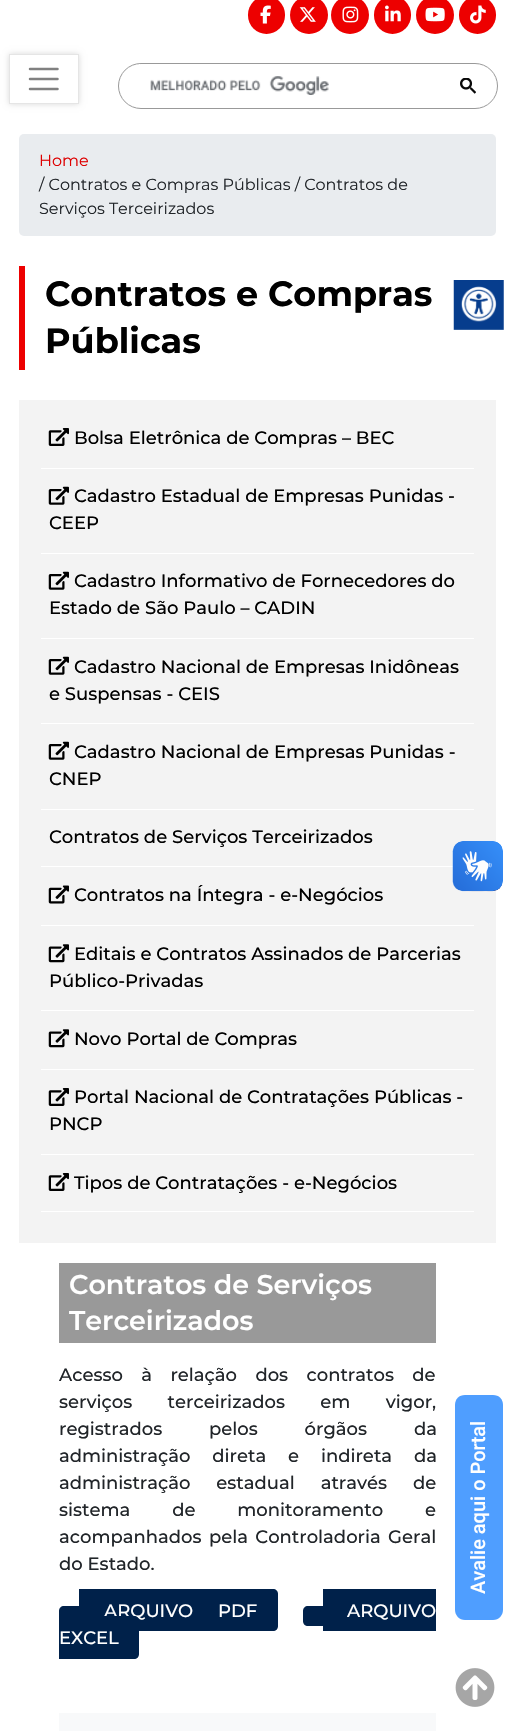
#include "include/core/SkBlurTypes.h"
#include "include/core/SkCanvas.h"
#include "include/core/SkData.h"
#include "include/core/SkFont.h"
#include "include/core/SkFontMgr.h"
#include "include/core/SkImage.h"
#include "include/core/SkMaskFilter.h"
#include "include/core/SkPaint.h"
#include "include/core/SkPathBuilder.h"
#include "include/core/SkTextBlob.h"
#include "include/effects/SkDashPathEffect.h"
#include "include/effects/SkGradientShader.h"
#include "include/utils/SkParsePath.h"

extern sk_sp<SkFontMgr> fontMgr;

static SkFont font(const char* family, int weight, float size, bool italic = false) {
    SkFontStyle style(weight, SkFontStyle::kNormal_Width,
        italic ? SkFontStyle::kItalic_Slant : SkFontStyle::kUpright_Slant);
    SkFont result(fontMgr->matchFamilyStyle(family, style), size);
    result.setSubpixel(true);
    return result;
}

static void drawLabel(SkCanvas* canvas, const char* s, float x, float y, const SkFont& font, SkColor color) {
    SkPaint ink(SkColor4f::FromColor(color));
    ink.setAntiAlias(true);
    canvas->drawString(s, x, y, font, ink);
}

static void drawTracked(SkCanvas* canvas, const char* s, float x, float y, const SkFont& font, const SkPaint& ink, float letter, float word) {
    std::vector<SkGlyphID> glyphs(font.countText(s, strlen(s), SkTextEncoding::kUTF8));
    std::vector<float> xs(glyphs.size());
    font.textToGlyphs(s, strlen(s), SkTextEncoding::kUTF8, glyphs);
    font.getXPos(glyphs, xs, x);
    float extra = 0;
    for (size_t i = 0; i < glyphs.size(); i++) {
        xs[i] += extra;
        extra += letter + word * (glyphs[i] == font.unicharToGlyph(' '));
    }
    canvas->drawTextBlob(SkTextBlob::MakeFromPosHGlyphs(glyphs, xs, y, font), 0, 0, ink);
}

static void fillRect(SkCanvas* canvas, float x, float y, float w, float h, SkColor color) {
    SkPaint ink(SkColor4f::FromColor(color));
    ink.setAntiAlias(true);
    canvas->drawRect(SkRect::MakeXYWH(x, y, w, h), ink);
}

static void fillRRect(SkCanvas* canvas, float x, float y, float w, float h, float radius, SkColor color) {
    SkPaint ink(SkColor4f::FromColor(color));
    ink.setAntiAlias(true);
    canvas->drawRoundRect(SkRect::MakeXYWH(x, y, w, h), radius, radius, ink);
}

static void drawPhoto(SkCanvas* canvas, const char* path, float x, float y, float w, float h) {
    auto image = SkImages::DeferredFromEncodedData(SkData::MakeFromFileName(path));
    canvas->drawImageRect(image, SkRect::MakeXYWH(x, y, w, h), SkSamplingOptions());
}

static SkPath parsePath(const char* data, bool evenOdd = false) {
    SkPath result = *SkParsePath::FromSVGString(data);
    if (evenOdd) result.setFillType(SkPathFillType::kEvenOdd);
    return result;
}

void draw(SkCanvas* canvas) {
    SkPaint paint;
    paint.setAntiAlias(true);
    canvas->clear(0xFFFFFFFF);
    fillRRect(canvas, 248, -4, 37, 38, 18.5f, 0xFFED0000);
    drawPhoto(canvas, "assets/img1.png", 260, 5, 11, 19);
    paint.setColor(0xFFED0000);
    canvas->drawCircle(309, 15, 19, paint);
    drawPhoto(canvas, "assets/img2.png", 299, 7, 17, 15);
    canvas->drawCircle(350, 15, 19, paint);
    drawPhoto(canvas, "assets/img3.png", 342, 6, 17, 17);
    fillRRect(canvas, 374, -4, 37, 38, 18.5f, 0xFFED0000);
    drawPhoto(canvas, "assets/img4.png", 385, 5, 16, 17);
    canvas->drawCircle(435, 15, 19, paint);
    drawPhoto(canvas, "assets/img5.png", 425, 7, 20, 15);
    fillRRect(canvas, 459, -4, 37, 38, 18.5f, 0xFFED0000);
    drawPhoto(canvas, "assets/img6.png", 470, 5, 16, 19);
    canvas->save();
    canvas->clipPath(parsePath("M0 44H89V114H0ZM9 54H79V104H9Z", true), true);
    paint.setColor(0x26000000);
    paint.setMaskFilter(SkMaskFilter::MakeBlur(kNormal_SkBlurStyle, 3));
    canvas->drawRect(SkRect::MakeXYWH(9, 54, 70, 50), paint);
    paint.setMaskFilter(nullptr);
    canvas->restore();
    paint.setStroke(true);
    paint.setStrokeWidth(1);
    paint.setColor(0xFFE5E5E5);
    canvas->drawRect(SkRect::MakeXYWH(9.5f, 54.5f, 69, 49), paint);
    paint.setStrokeWidth(2.5f);
    paint.setStrokeCap(SkPaint::kRound_Cap);
    paint.setColor(0xFF808080);
    canvas->drawPath(parsePath("M30 69H57.5M30 79H57.5M30 89H57.5"), paint);
    paint.setStrokeWidth(1);
    paint.setStrokeCap(SkPaint::kButt_Cap);
    paint.setColor(0xFF999999);
    canvas->drawRoundRect(SkRect::MakeXYWH(118.5f, 63.5f, 379, 45), 22.5f, 22.5f, paint);
    fillRect(canvas, 139, 64, 1, 1, 0xFFFFFFFF);
    drawPhoto(canvas, "assets/img7.png", 150, 76, 179, 19);
    drawPhoto(canvas, "assets/img8.png", 460, 78, 16, 16);
    fillRRect(canvas, 19, 134, 477, 102, 5, 0xFFE9ECEF);
    SkFont font1 = font("Montserrat", 400, 16);
    drawLabel(canvas, "Home", 39, 166, font1, 0xFFDE0000);
    drawLabel(canvas, "/ Contratos e Compras Públicas / Contratos de", 39, 190, font1, 0xFF212529);
    drawLabel(canvas, "Serviços Terceirizados", 39, 214, font1, 0xFF212529);
    fillRect(canvas, 19, 266, 6, 104, 0xFFED0000);
    SkFont font2 = font("Montserrat", 700, 35);
    drawLabel(canvas, "Contratos e Compras", 45, 306, font2, 0xFF000000);
    drawLabel(canvas, "Públicas", 45, 353, font2, 0xFF000000);
    fillRect(canvas, 19, 400, 477, 843, 0xFFF3F3F3);
    fillRect(canvas, 41, 468, 433, 1, 0xFFFFFFFF);
    drawPhoto(canvas, "assets/img9.png", 48, 428, 21, 18);
    SkFont font3 = font("Montserrat", 500, 18);
    drawLabel(canvas, "Bolsa Eletrônica de Compras – BEC", 74, 444, font3, 0xFF000000);
    fillRect(canvas, 41, 553, 433, 1, 0xFFFFFFFF);
    drawPhoto(canvas, "assets/img10.png", 48, 486, 21, 19);
    drawLabel(canvas, "Cadastro Estadual de Empresas Punidas -", 74, 502, font3, 0xFF000000);
    drawLabel(canvas, "CEEP", 49, 529, font3, 0xFF000000);
    fillRect(canvas, 41, 638, 433, 1, 0xFFFFFFFF);
    drawPhoto(canvas, "assets/img10.png", 48, 571, 21, 19);
    drawLabel(canvas, "Cadastro Informativo de Fornecedores do", 74, 587, font3, 0xFF000000);
    drawLabel(canvas, "Estado de São Paulo – CADIN", 49, 614, font3, 0xFF000000);
    fillRect(canvas, 41, 723, 433, 1, 0xFFFFFFFF);
    drawPhoto(canvas, "assets/img10.png", 48, 656, 21, 19);
    drawLabel(canvas, "Cadastro Nacional de Empresas Inidôneas", 74, 673, font3, 0xFF000000);
    drawLabel(canvas, "e Suspensas - CEIS", 49, 700, font3, 0xFF000000);
    fillRect(canvas, 41, 809, 433, 1, 0xFFFFFFFF);
    drawPhoto(canvas, "assets/img10.png", 48, 741, 21, 19);
    drawLabel(canvas, "Cadastro Nacional de Empresas Punidas -", 74, 758, font3, 0xFF000000);
    drawLabel(canvas, "CNEP", 49, 785, font3, 0xFF000000);
    fillRect(canvas, 41, 866, 412, 1, 0xFFFFFFFF);
    drawLabel(canvas, "Contratos de Serviços Terceirizados", 49, 843, font3, 0xFF000000);
    fillRect(canvas, 41, 925, 433, 1, 0xFFFFFFFF);
    drawPhoto(canvas, "assets/img11.png", 48, 885, 21, 19);
    drawLabel(canvas, "Contratos na Íntegra - e-Negócios", 74, 901, font3, 0xFF000000);
    fillRect(canvas, 41, 1010, 433, 1, 0xFFFFFFFF);
    drawPhoto(canvas, "assets/img12.png", 48, 944, 21, 19);
    drawLabel(canvas, "Editais e Contratos Assinados de Parcerias", 74, 960, font3, 0xFF000000);
    drawLabel(canvas, "Público-Privadas", 49, 987, font3, 0xFF000000);
    fillRect(canvas, 41, 1069, 433, 1, 0xFFFFFFFF);
    drawPhoto(canvas, "assets/img12.png", 48, 1029, 21, 19);
    drawLabel(canvas, "Novo Portal de Compras", 74, 1045, font3, 0xFF000000);
    fillRect(canvas, 41, 1154, 433, 1, 0xFFFFFFFF);
    drawPhoto(canvas, "assets/img9.png", 48, 1088, 21, 18);
    drawLabel(canvas, "Portal Nacional de Contratações Públicas -", 74, 1103, font3, 0xFF000000);
    drawLabel(canvas, "PNCP", 49, 1130, font3, 0xFF000000);
    fillRect(canvas, 41, 1211, 433, 1, 0xFFFFFFFF);
    drawPhoto(canvas, "assets/img9.png", 48, 1173, 21, 18);
    drawLabel(canvas, "Tipos de Contratações - e-Negócios", 74, 1189, font3, 0xFF000000);
    fillRect(canvas, 59, 1263, 377, 80, 0xFF999999);
    SkFont font4 = font("Montserrat", 600, 27);
    drawLabel(canvas, "Contratos de Serviços", 69, 1294, font4, 0xFFFFFFFF);
    drawLabel(canvas, "Terceirizados", 69, 1330, font4, 0xFFFFFFFF);
    paint.setStroke(false);
    paint.setColor(0xFF212529);
    drawTracked(canvas, "Acesso à relação dos contratos de", 59, 1381, font3, paint, 0, 13.5f);
    drawTracked(canvas, "serviços terceirizados em vigor,", 59, 1408, font3, paint, 0, 30.5f);
    drawTracked(canvas, "registrados pelos órgãos da", 59, 1435, font3, paint, 0, 42);
    drawTracked(canvas, "administração direta e indireta da", 59, 1462, font3, paint, 0, 17);
    drawTracked(canvas, "administração estadual através de", 59, 1489, font3, paint, 0, 21);
    drawTracked(canvas, "sistema de monitoramento e", 59, 1516, font3, paint, 0, 37);
    drawTracked(canvas, "acompanhados pela Controladoria Geral", 59, 1543, font3, paint, 0, 2.5f);
    drawLabel(canvas, "do Estado.", 59, 1570, font3, 0xFF212529);
    paint.setColor(0xFF00214A);
    canvas->drawPath(parsePath("M79 1589H273C276 1589 278 1591 278 1594V1626C278 1629 276 1631 273 1631H79Z"), paint);
    paint.setColor(0xFFFFFFFF);
    drawTracked(canvas, "ARQUIVO PDF", 104, 1617, font3, paint, 0, 20);
    paint.setColor(0xFF00214A);
    canvas->drawPath(parsePath("M64 1606H79V1626H64C61 1626 59 1624 59 1621V1611C59 1608 61 1606 64 1606Z"), paint);
    fillRect(canvas, 323, 1589, 113, 42, 0xFF00214A);
    drawLabel(canvas, "ARQUIVO", 347, 1617, font3, 0xFFFFFFFF);
    canvas->drawPath(parsePath("M308 1606H323V1626H308C305 1626 303 1624 303 1621V1611C303 1608 305 1606 308 1606Z"), paint);
    canvas->drawPath(parsePath("M59 1616H134C137 1616 139 1618 139 1621V1654C139 1657 137 1659 134 1659H59Z"), paint);
    drawLabel(canvas, "EXCEL", 59, 1644, font3, 0xFFFFFFFF);
    fillRect(canvas, 59, 1713, 377, 18, 0xFFF8F9FA);
    drawPhoto(canvas, "assets/img13.png", 452, 841, 51, 51);
    drawPhoto(canvas, "assets/img14.png", 453, 841, 50, 50);
    drawPhoto(canvas, "assets/img15.png", 453, 280, 51, 50);
    paint.setColor(0xFF4F9EFF);
    canvas->drawPath(parsePath("M455 1610V1405C455 1399 459 1395 465 1395H493C499 1395 503 1399 503 1405V1610C503 1615 499 1620 493 1620H465C459 1620 455 1615 455 1610Z"), paint);
    SkFont font5 = font("Roboto", 500, 20);
    canvas->save();
    canvas->rotate(-90, 485, 1594);
    drawLabel(canvas, "Avalie aqui o Portal", 485, 1594, font5, 0xFFFFFFFF);
    canvas->restore();
    drawPhoto(canvas, "assets/img16.png", 455, 1668, 40, 39);
}
